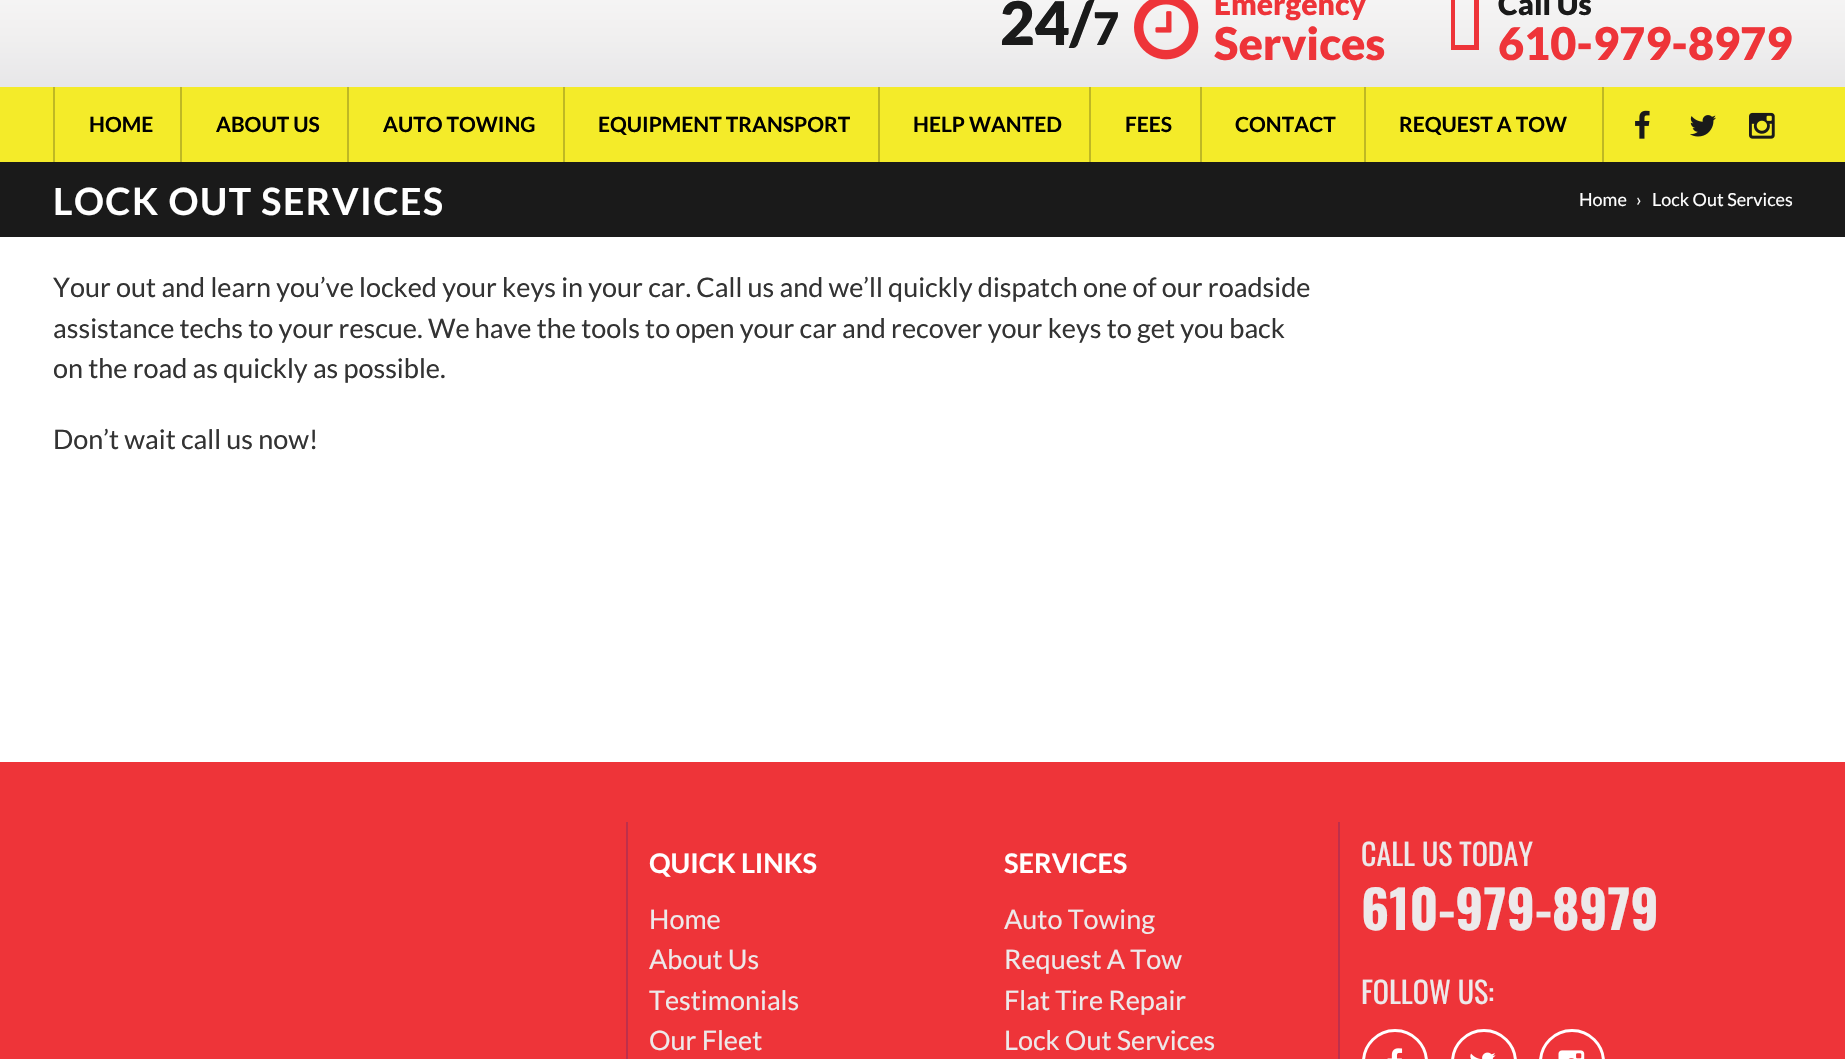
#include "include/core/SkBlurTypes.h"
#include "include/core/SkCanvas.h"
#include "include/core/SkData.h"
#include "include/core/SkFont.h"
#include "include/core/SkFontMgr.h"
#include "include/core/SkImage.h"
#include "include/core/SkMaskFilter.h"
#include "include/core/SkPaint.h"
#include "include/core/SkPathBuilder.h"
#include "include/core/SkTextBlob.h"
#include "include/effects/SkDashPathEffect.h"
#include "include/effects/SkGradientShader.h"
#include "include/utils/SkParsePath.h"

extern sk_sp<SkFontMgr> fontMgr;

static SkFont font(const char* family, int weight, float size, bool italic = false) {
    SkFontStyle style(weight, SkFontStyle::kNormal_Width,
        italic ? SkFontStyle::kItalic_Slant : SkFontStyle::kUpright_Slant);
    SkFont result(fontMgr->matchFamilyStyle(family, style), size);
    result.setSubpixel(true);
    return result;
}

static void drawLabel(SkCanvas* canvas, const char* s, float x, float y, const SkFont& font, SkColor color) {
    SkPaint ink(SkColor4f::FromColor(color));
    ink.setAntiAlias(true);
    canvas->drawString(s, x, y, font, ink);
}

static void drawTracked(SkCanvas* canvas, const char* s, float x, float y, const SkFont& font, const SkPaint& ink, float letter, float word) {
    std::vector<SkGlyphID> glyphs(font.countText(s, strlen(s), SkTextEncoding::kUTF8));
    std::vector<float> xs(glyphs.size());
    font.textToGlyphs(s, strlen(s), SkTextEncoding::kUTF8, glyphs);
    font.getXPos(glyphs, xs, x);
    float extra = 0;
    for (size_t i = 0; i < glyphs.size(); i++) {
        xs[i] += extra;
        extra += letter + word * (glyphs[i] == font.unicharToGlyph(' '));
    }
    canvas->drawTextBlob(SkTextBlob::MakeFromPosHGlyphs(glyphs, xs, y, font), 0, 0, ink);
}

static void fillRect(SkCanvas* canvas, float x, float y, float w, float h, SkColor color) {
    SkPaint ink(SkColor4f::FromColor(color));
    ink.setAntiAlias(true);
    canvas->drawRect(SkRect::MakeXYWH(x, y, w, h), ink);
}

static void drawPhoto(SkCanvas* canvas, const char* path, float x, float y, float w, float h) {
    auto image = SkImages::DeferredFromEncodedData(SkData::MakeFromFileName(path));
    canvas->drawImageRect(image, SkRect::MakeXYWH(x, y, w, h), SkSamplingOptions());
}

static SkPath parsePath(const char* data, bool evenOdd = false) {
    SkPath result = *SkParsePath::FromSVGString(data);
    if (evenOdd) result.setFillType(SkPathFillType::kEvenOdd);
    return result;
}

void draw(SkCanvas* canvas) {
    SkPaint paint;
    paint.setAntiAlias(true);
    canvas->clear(0xFFFFFFFF);
    {
        const SkColor colors[] = {0xFFFFFFFF, 0xFFF0EFEF, 0xFFD9D9DE};
        const float stops[] = {0, 0.5f, 1};
        const SkPoint ends[] = {{923, -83}, {923, 162}};
        paint.setShader(SkGradientShader::MakeLinear(ends, colors, stops, 3, SkTileMode::kClamp));
        paint.setAlpha(255);
    }
    canvas->drawRect(SkRect::MakeXYWH(0, 0, 1845, 87), paint);
    SkFont font1 = font("Lato", 900, 60);
    drawLabel(canvas, "24/", 1000, 45, font1, 0xFF1A1A1A);
    SkFont font2 = font("Lato", 900, 45);
    drawLabel(canvas, "7", 1093, 45, font2, 0xFF1A1A1A);
    drawPhoto(canvas, "assets/img1.png", 1134, 0, 65, 60);
    SkFont font3 = font("Lato", 900, 30);
    drawLabel(canvas, "Emergency", 1214, 15, font3, 0xFFEE3439);
    drawLabel(canvas, "Services", 1214, 60, font2, 0xFFEE3439);
    paint.setShader(nullptr);
    paint.setColor(0xFFEE3439);
    canvas->drawPath(parsePath("M1455 45H1474V-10H1455ZM1451 50V-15H1479V50Z"), paint);
    drawLabel(canvas, "Call Us", 1498, 15, font3, 0xFF1A1A1A);
    drawLabel(canvas, "610-979-8979", 1498, 60, font2, 0xFFEE3439);
    fillRect(canvas, 0, 87, 1845, 75, 0xFFF4EB29);
    fillRect(canvas, 53, 87, 2, 75, 0xFFBFB824);
    SkFont font4 = font("Lato", 700, 21);
    drawLabel(canvas, "HOME", 89, 132, font4, 0xFF000000);
    fillRect(canvas, 180, 87, 2, 75, 0xFFBFB824);
    drawLabel(canvas, "ABOUT US", 216, 132, font4, 0xFF000000);
    fillRect(canvas, 347, 87, 2, 75, 0xFFBFB824);
    drawLabel(canvas, "AUTO TOWING", 383, 132, font4, 0xFF000000);
    fillRect(canvas, 563, 87, 2, 75, 0xFFBFB824);
    drawLabel(canvas, "EQUIPMENT TRANSPORT", 598, 132, font4, 0xFF000000);
    fillRect(canvas, 878, 87, 2, 75, 0xFFBFB824);
    drawLabel(canvas, "HELP WANTED", 913, 132, font4, 0xFF000000);
    fillRect(canvas, 1089, 87, 2, 75, 0xFFBFB824);
    drawLabel(canvas, "FEES", 1125, 132, font4, 0xFF000000);
    fillRect(canvas, 1200, 87, 2, 75, 0xFFBFB824);
    drawLabel(canvas, "CONTACT", 1235, 132, font4, 0xFF000000);
    fillRect(canvas, 1602, 87, 2, 75, 0xFFBFB824);
    fillRect(canvas, 1364, 87, 2, 75, 0xFFBFB824);
    drawLabel(canvas, "REQUEST A TOW", 1399, 132, font4, 0xFF000000);
    drawPhoto(canvas, "assets/img2.png", 1635, 110, 15, 29);
    drawPhoto(canvas, "assets/img3.png", 1690, 115, 26, 22);
    drawPhoto(canvas, "assets/img4.png", 1749, 112, 26, 27);
    fillRect(canvas, 0, 162, 1845, 75, 0xFF1A1A1A);
    SkFont font5 = font("Lato", 700, 37.5f);
    paint.setColor(0xFFFFFFFF);
    drawTracked(canvas, "LOCK OUT SERVICES", 53, 215, font5, paint, 1.5f, 0);
    SkFont font6 = font("Lato", 400, 18);
    drawLabel(canvas, "Home", 1579, 206, font6, 0xFFFFFFFF);
    drawLabel(canvas, "›", 1636, 206, font6, 0xFFFFFFFF);
    drawLabel(canvas, "Lock Out Services", 1652, 206, font6, 0xFFFFFFFF);
    SkFont font7 = font("Lato", 400, 27);
    drawLabel(canvas, "Your out and learn you’ve locked your keys in your car. Call us and we’ll quickly dispatch one of our roadside", 53, 297, font7, 0xFF333333);
    drawLabel(canvas, "assistance techs to your rescue. We have the tools to open your car and recover your keys to get you back", 53, 338, font7, 0xFF333333);
    drawLabel(canvas, "on the road as quickly as possible.", 53, 378, font7, 0xFF333333);
    drawLabel(canvas, "Don’t wait call us now!", 53, 449, font7, 0xFF333333);
    fillRect(canvas, 0, 762, 1845, 297, 0xFFEE3439);
    fillRect(canvas, 626, 822, 2, 237, 0xFFBF2F4B);
    SkFont font8 = font("Lato", 700, 27);
    drawLabel(canvas, "QUICK LINKS", 649, 873, font8, 0xFFFFFFFF);
    drawLabel(canvas, "Home", 649, 929, font7, 0xFFEDE9EA);
    drawLabel(canvas, "About Us", 649, 969, font7, 0xFFEDE9EA);
    drawLabel(canvas, "Testimonials", 649, 1010, font7, 0xFFEDE9EA);
    drawLabel(canvas, "Our Fleet", 649, 1050, font7, 0xFFEDE9EA);
    fillRect(canvas, 1338, 822, 2, 237, 0xFFBF2F4B);
    drawLabel(canvas, "SERVICES", 1004, 873, font8, 0xFFFFFFFF);
    drawLabel(canvas, "Auto Towing", 1004, 929, font7, 0xFFEDE9EA);
    drawLabel(canvas, "Request A Tow", 1004, 969, font7, 0xFFEDE9EA);
    drawLabel(canvas, "Flat Tire Repair", 1004, 1010, font7, 0xFFEDE9EA);
    drawLabel(canvas, "Lock Out Services", 1004, 1050, font7, 0xFFEDE9EA);
    SkFont font9 = font("Oswald", 400, 30);
    drawLabel(canvas, "CALL US TODAY", 1361, 866, font9, 0xFFEDE9EA);
    SkFont font10 = font("Oswald", 700, 52.5f);
    drawLabel(canvas, "610-979-8979", 1361, 930, font10, 0xFFEDE9EA);
    drawLabel(canvas, "FOLLOW US:", 1361, 1004, font9, 0xFFEDE9EA);
    paint.setStroke(true);
    paint.setStrokeWidth(3);
    canvas->drawCircle(1395, 1062, 31.5f, paint);
    drawPhoto(canvas, "assets/img5.png", 1387, 1048, 16, 11);
    canvas->drawCircle(1484, 1062, 31.5f, paint);
    drawPhoto(canvas, "assets/img6.png", 1470, 1052, 26, 7);
    canvas->drawCircle(1572, 1062, 31.5f, paint);
    drawPhoto(canvas, "assets/img7.png", 1558, 1050, 27, 9);
}
